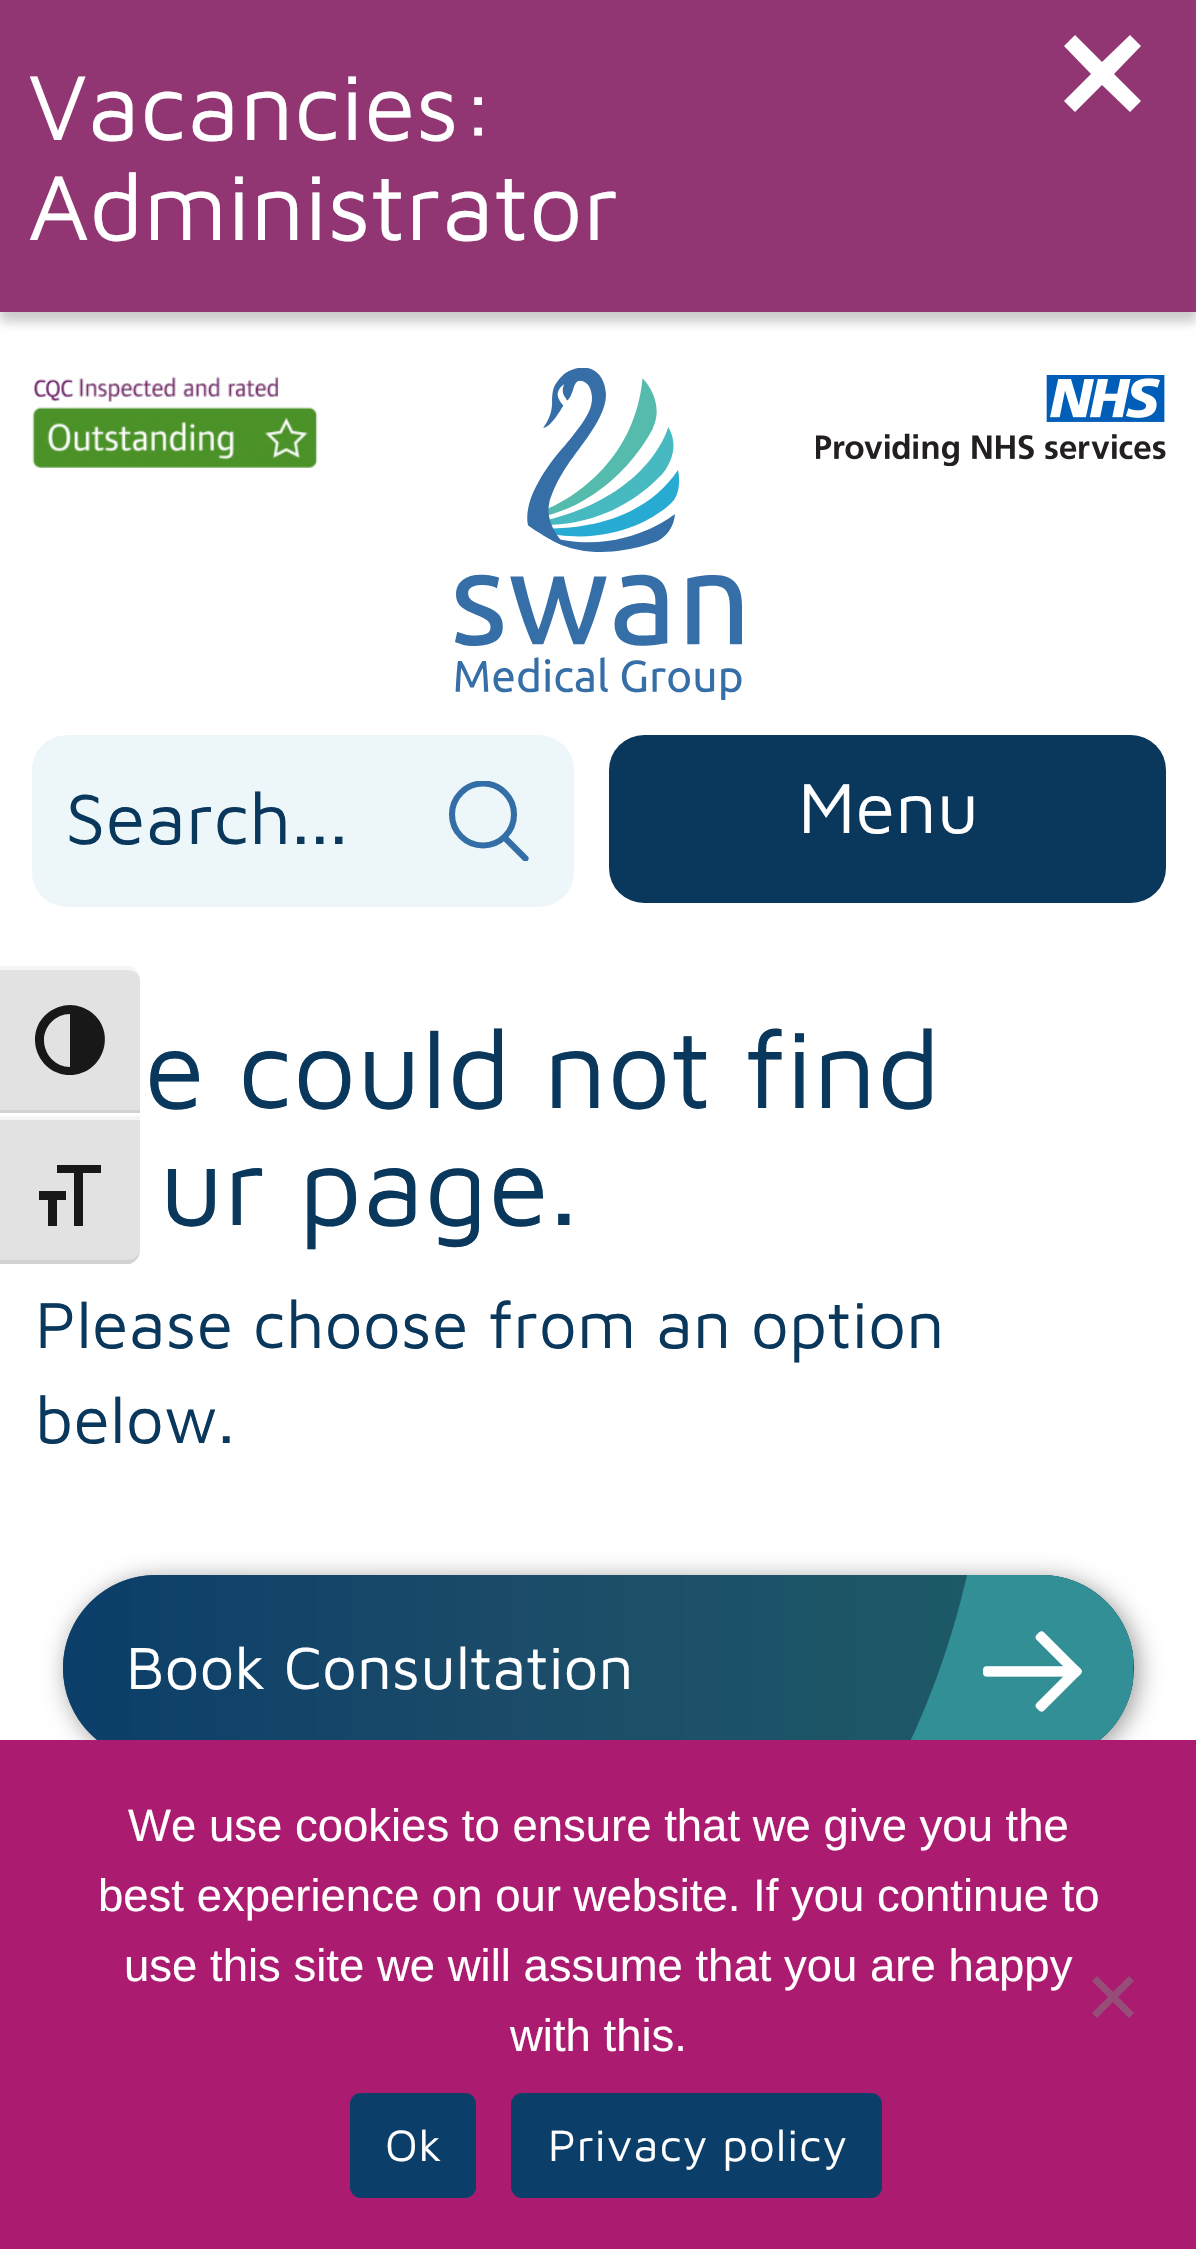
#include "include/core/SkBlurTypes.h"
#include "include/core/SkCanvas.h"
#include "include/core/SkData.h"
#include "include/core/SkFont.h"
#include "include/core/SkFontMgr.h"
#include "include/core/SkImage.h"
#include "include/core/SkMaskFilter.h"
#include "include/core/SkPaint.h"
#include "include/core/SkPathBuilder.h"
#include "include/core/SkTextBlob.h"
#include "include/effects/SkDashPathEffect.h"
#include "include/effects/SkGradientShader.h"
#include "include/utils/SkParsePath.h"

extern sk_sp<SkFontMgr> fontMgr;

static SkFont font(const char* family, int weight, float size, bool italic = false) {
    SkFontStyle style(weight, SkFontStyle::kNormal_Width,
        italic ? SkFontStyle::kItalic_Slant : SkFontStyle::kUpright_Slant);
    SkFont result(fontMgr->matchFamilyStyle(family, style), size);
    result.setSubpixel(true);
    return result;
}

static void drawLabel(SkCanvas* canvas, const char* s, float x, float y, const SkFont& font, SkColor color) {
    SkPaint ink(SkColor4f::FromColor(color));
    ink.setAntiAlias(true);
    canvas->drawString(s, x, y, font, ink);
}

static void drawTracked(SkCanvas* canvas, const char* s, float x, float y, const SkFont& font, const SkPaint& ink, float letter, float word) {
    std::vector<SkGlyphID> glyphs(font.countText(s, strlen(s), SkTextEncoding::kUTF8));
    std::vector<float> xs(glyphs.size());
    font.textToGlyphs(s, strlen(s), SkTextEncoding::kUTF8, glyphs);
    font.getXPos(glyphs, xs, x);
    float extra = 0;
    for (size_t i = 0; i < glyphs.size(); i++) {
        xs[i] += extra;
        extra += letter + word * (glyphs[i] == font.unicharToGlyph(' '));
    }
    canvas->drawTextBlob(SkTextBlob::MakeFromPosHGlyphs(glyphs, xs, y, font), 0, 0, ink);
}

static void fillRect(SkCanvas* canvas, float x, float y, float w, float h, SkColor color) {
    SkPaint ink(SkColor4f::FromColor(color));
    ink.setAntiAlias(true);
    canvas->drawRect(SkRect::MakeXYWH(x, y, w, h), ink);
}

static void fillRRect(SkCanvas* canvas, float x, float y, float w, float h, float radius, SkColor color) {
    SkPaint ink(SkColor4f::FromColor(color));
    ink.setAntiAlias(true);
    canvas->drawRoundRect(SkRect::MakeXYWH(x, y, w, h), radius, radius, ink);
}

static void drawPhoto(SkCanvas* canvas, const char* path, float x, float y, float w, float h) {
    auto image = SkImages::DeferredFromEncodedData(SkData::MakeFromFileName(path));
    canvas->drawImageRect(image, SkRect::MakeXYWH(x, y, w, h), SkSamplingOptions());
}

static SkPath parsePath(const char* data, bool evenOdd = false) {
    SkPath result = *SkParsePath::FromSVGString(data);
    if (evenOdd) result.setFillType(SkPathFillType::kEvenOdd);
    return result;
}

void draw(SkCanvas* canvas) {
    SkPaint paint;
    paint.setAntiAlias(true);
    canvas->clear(0xFFFFFFFF);
    paint.setColor(0x33000000);
    paint.setMaskFilter(SkMaskFilter::MakeBlur(kNormal_SkBlurStyle, 5));
    canvas->drawRect(SkRect::MakeXYWH(0, 11, 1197, 311), paint);
    paint.setMaskFilter(nullptr);
    fillRect(canvas, 0, 0, 1196, 312, 0xFF913673);
    SkFont font1 = font("Maven Pro", 400, 95.25f);
    drawLabel(canvas, "Vacancies:", 28, 140, font1, 0xFFFFFFFF);
    drawLabel(canvas, "Administrator", 28, 240, font1, 0xFFFFFFFF);
    paint.setColor(0xFFFFFFFF);
    canvas->drawPath(parsePath("M1141 46L1130 35L1102 62L1075 35L1064 46L1091 74L1064 101L1075 112L1102 85L1130 112L1141 101L1114 74Z"), paint);
    drawPhoto(canvas, "assets/img1.png", 32, 376, 286, 92);
    drawPhoto(canvas, "assets/img2.png", 455, 368, 287, 332);
    drawPhoto(canvas, "assets/img3.png", 816, 375, 350, 91);
    fillRRect(canvas, 32, 735, 542, 172, 35, 0xFFEDF7F9);
    SkFont font2 = font("Maven Pro", 400, 73);
    drawLabel(canvas, "Search...", 65, 844, font2, 0xFF0A375C);
    canvas->save();
    canvas->clipRect(SkRect::MakeXYWH(448, 781, 81, 80));
    paint.setStroke(true);
    paint.setStrokeWidth(6.1f);
    paint.setColor(0xFF346EA6);
    canvas->drawCircle(483, 814.5f, 31, paint);
    paint.setStrokeCap(SkPaint::kRound_Cap);
    canvas->drawPath(parsePath("M505 838L525.5 858.5"), paint);
    canvas->restore();
    fillRRect(canvas, 609, 735, 557, 168, 35, 0xFF0A375C);
    drawLabel(canvas, "Menu", 798, 833, font2, 0xFFFFFFFF);
    SkFont font3 = font("Maven Pro", 400, 112);
    drawLabel(canvas, "e could not find", 144, 1108, font3, 0xFF0A375C);
    drawLabel(canvas, "ur page.", 159, 1225, font3, 0xFF0A375C);
    SkFont font4 = font("Maven Pro", 400, 67.25f);
    drawLabel(canvas, "Please choose from an option", 35, 1348, font4, 0xFF0A375C);
    drawLabel(canvas, "below.", 35, 1443, font4, 0xFF0A375C);
    paint.setStroke(false);
    paint.setColor(0x66000000);
    paint.setMaskFilter(SkMaskFilter::MakeBlur(kNormal_SkBlurStyle, 12));
    canvas->drawRoundRect(SkRect::MakeXYWH(67, 1579, 1071, 185), 92.5f, 92.5f, paint);
    paint.setMaskFilter(nullptr);
    fillRRect(canvas, 63, 1575, 1071, 186, 93, 0xFF285567);
    drawPhoto(canvas, "assets/img4.png", 63, 1575, 1070, 165);
    SkFont font5 = font("Maven Pro", 400, 61.5f);
    drawLabel(canvas, "Book Consultation", 126, 1689, font5, 0xFFFFFFFF);
    paint.setColor(0xFFE2E2E2);
    canvas->drawPath(parsePath("M0 966H126C133.5 966 140 972.5 140 980V1113H0Z"), paint);
    paint.setColor(0xFFF5F5F5);
    canvas->drawPath(parsePath("M0 966V970H126C134 970 140 974 140 980C140 972 134 966 126 966Z"), paint);
    fillRect(canvas, 0, 1110, 140, 3, 0xFFD2D2D2);
    paint.setColor(0xFF181818);
    canvas->drawPath(parsePath("M70 1005C62 1005 55 1008 49 1012C22 1032 37 1075 70 1075C103 1075 118 1032 91 1012C85 1008 78 1005 70 1005ZM44 1040C44 1026 56 1014 70 1014V1067C56 1067 44 1055 44 1040Z"), paint);
    paint.setColor(0xFFE2E2E2);
    canvas->drawPath(parsePath("M0 1117H140V1250C140 1257.5 133.5 1264 126 1264H0Z"), paint);
    fillRect(canvas, 0, 1116, 140, 4, 0xFFF5F5F5);
    paint.setColor(0xFFD2D2D2);
    canvas->drawPath(parsePath("M130 1264C136 1262 140 1256 140 1250C140 1255 134 1260 126 1260H0V1264Z"), paint);
    paint.setColor(0xFF181818);
    canvas->drawPath(parsePath("M39 1191H66V1200H57V1226H48V1200H39ZM101 1173H83V1226H74V1173H57V1165H101Z"), paint);
    fillRect(canvas, 0, 1740, 1196, 509, 0xFFAB1C71);
    SkFont font6 = font("Liberation Sans", 400, 45.5f);
    drawLabel(canvas, "We use cookies to ensure that we give you the", 128, 1841, font6, 0xFFFFFFFF);
    drawLabel(canvas, "best experience on our website. If you continue to", 98, 1911, font6, 0xFFFFFFFF);
    drawLabel(canvas, "use this site we will assume that you are happy", 124, 1981, font6, 0xFFFFFFFF);
    drawLabel(canvas, "with this.", 510, 2051, font6, 0xFFFFFFFF);
    paint.setColor(0xFF964E79);
    canvas->drawPath(parsePath("M1129 1976L1134 1981L1097 2018L1092 2013Z"), paint);
    canvas->drawPath(parsePath("M1092 1981L1097 1976L1134 2013L1129 2018Z"), paint);
    fillRRect(canvas, 350, 2093, 126, 105, 11, 0xFF0B3E69);
    SkFont font7 = font("Maven Pro", 400, 45.5f);
    paint.setColor(0xFFFFFFFF);
    drawTracked(canvas, "Ok", 385, 2161, font7, paint, 0.9f, 0);
    fillRRect(canvas, 511, 2093, 371, 105, 11, 0xFF0B3E69);
    drawTracked(canvas, "Privacy policy", 548, 2161, font7, paint, 0.9f, 0);
}
